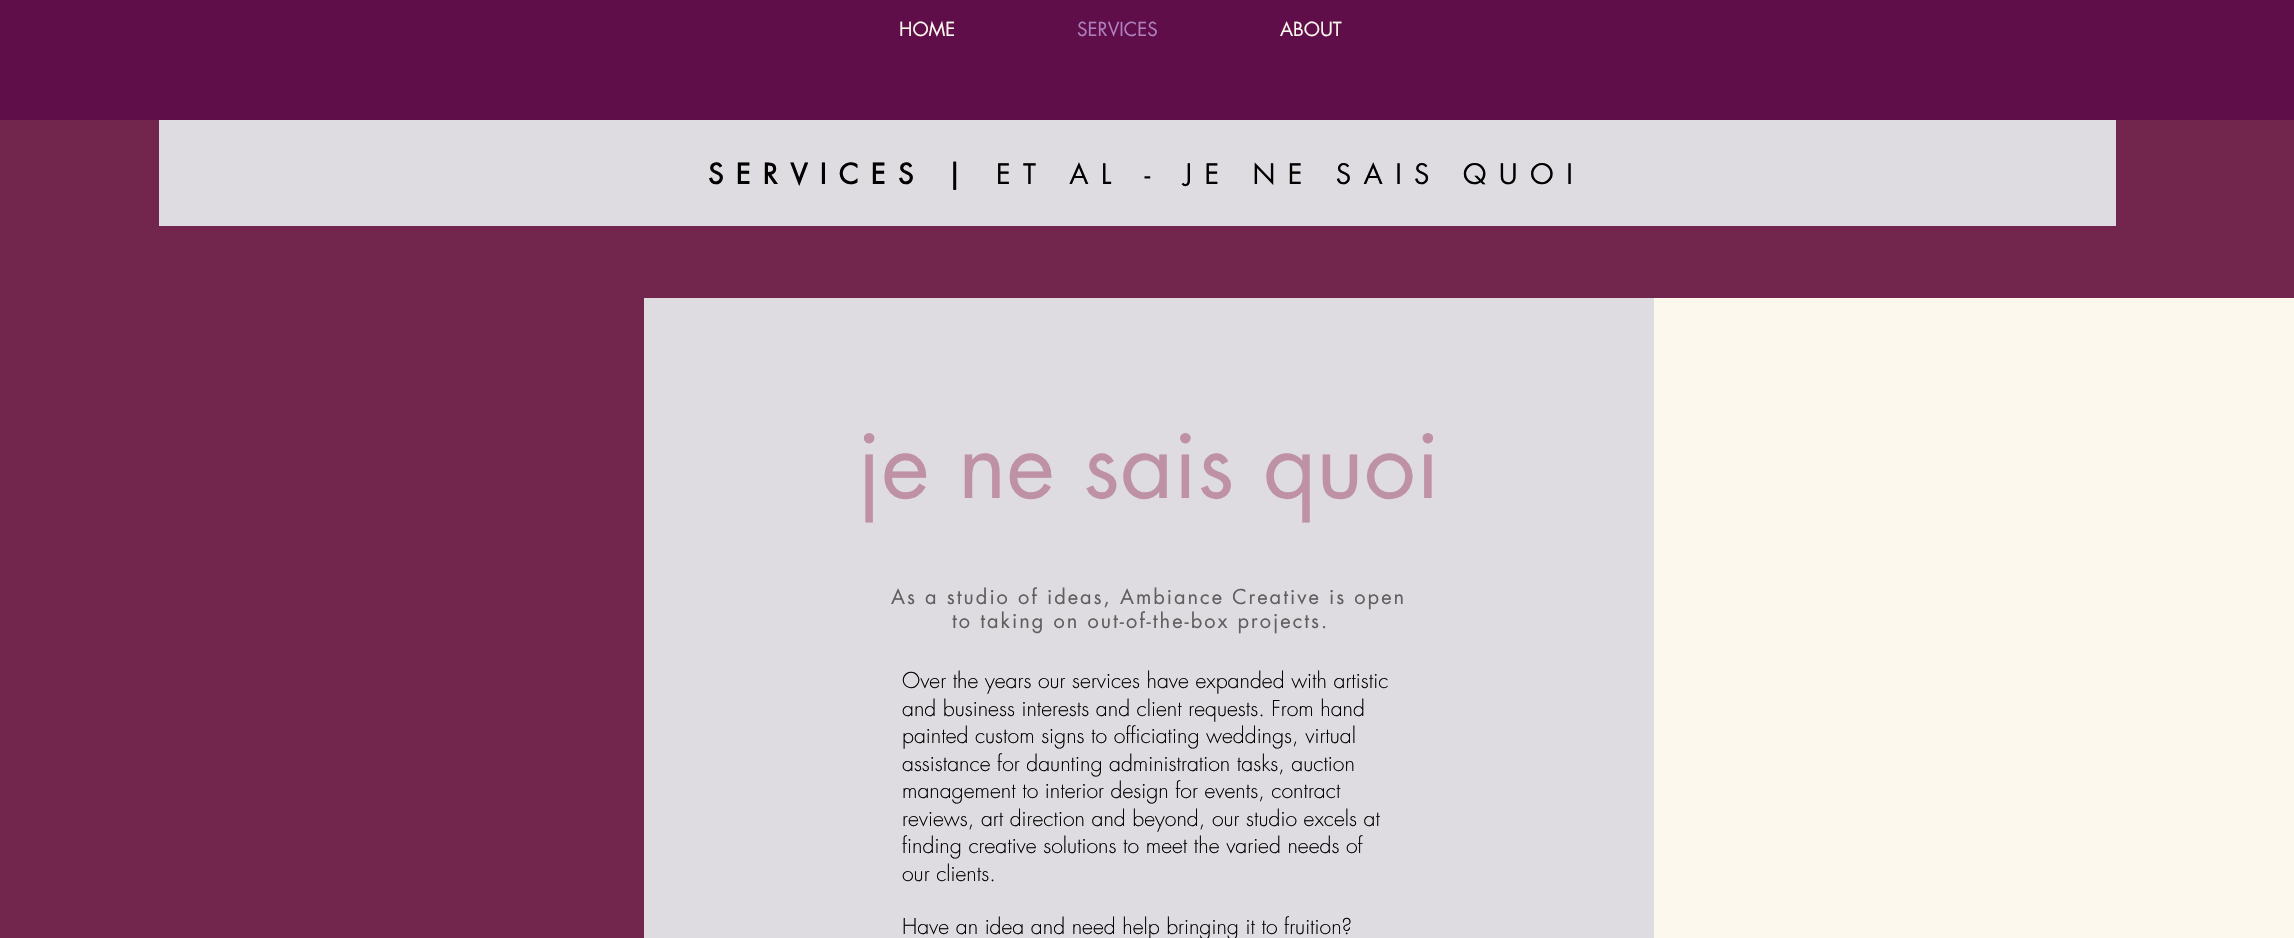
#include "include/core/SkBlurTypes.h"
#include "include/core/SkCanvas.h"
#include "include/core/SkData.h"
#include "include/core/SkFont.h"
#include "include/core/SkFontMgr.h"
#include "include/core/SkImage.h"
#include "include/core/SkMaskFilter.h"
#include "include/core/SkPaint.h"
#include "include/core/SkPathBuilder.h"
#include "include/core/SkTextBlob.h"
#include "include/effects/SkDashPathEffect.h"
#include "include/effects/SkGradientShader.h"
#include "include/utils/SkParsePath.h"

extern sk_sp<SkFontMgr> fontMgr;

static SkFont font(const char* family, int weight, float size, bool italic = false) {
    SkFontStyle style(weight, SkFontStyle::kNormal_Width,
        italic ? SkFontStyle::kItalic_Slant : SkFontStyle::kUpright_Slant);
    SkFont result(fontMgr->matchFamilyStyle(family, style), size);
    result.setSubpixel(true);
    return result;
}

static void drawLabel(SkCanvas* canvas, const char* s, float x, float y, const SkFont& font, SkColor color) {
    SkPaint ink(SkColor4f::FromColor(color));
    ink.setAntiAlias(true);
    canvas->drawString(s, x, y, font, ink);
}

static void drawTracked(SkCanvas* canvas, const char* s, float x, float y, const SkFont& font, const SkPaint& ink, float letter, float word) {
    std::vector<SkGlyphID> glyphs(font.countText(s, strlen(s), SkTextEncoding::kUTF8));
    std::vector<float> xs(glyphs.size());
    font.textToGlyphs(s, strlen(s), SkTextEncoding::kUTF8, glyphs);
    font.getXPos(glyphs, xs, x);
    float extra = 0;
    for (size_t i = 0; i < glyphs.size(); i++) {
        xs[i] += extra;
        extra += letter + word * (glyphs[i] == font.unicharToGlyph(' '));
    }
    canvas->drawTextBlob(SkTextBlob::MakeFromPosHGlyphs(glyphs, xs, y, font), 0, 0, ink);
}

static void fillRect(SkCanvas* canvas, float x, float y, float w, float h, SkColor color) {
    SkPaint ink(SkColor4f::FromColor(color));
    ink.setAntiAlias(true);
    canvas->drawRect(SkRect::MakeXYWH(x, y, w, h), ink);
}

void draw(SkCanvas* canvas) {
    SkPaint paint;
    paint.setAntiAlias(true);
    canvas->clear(0xFF73264D);
    fillRect(canvas, 0, 0, 2294, 120, 0xFF5F0E49);
    SkFont font1 = font("futura", 400, 18.75f);
    drawLabel(canvas, "HOME", 899, 36, font1, 0xFFFCF8ED);
    drawLabel(canvas, "SERVICES", 1077, 36, font1, 0xFFAF80BF);
    drawLabel(canvas, "ABOUT", 1280, 36, font1, 0xFFFCF8ED);
    fillRect(canvas, 159, 120, 1957, 106, 0xFFDEDCE0);
    SkFont font2 = font("futura", 700, 27.5f);
    paint.setColor(0xFF000000);
    drawTracked(canvas, "SERVICES |", 708, 184, font2, paint, 12.4f, 0);
    SkFont font3 = font("futura", 400, 27.5f);
    drawTracked(canvas, "ET AL - JE NE SAIS QUOI", 996, 184, font3, paint, 12.4f, 0);
    fillRect(canvas, 644, 298, 1010, 640, 0xFFDEDCE0);
    SkFont font4 = font("futura", 400, 92.5f);
    drawLabel(canvas, "je ne sais quoi", 857, 498, font4, 0xFFBF91A5);
    SkFont font5 = font("futura", 400, 20);
    paint.setColor(0xFF605E5E);
    drawTracked(canvas, "As a studio of ideas, Ambiance Creative is open", 891, 604, font5, paint, 2, 0);
    drawTracked(canvas, "to taking on out-of-the-box projects.", 952, 628, font5, paint, 2, 0);
    SkFont font6 = font("futura", 300, 21.25f);
    drawLabel(canvas, "Over the years our services have expanded with artistic", 902, 688, font6, 0xFF000000);
    drawLabel(canvas, "and business interests and client requests. From hand", 902, 716, font6, 0xFF000000);
    drawLabel(canvas, "painted custom signs to officiating weddings, virtual", 902, 743, font6, 0xFF000000);
    drawLabel(canvas, "assistance for daunting administration tasks, auction", 902, 771, font6, 0xFF000000);
    drawLabel(canvas, "management to interior design for events, contract", 902, 798, font6, 0xFF000000);
    drawLabel(canvas, "reviews, art direction and beyond, our studio excels at", 902, 826, font6, 0xFF000000);
    drawLabel(canvas, "finding creative solutions to meet the varied needs of", 902, 853, font6, 0xFF000000);
    drawLabel(canvas, "our clients.", 902, 881, font6, 0xFF000000);
    drawLabel(canvas, "Have an idea and need help bringing it to fruition?", 902, 934, font6, 0xFF000000);
    fillRect(canvas, 1654, 298, 640, 640, 0xFFFCF8ED);
}
